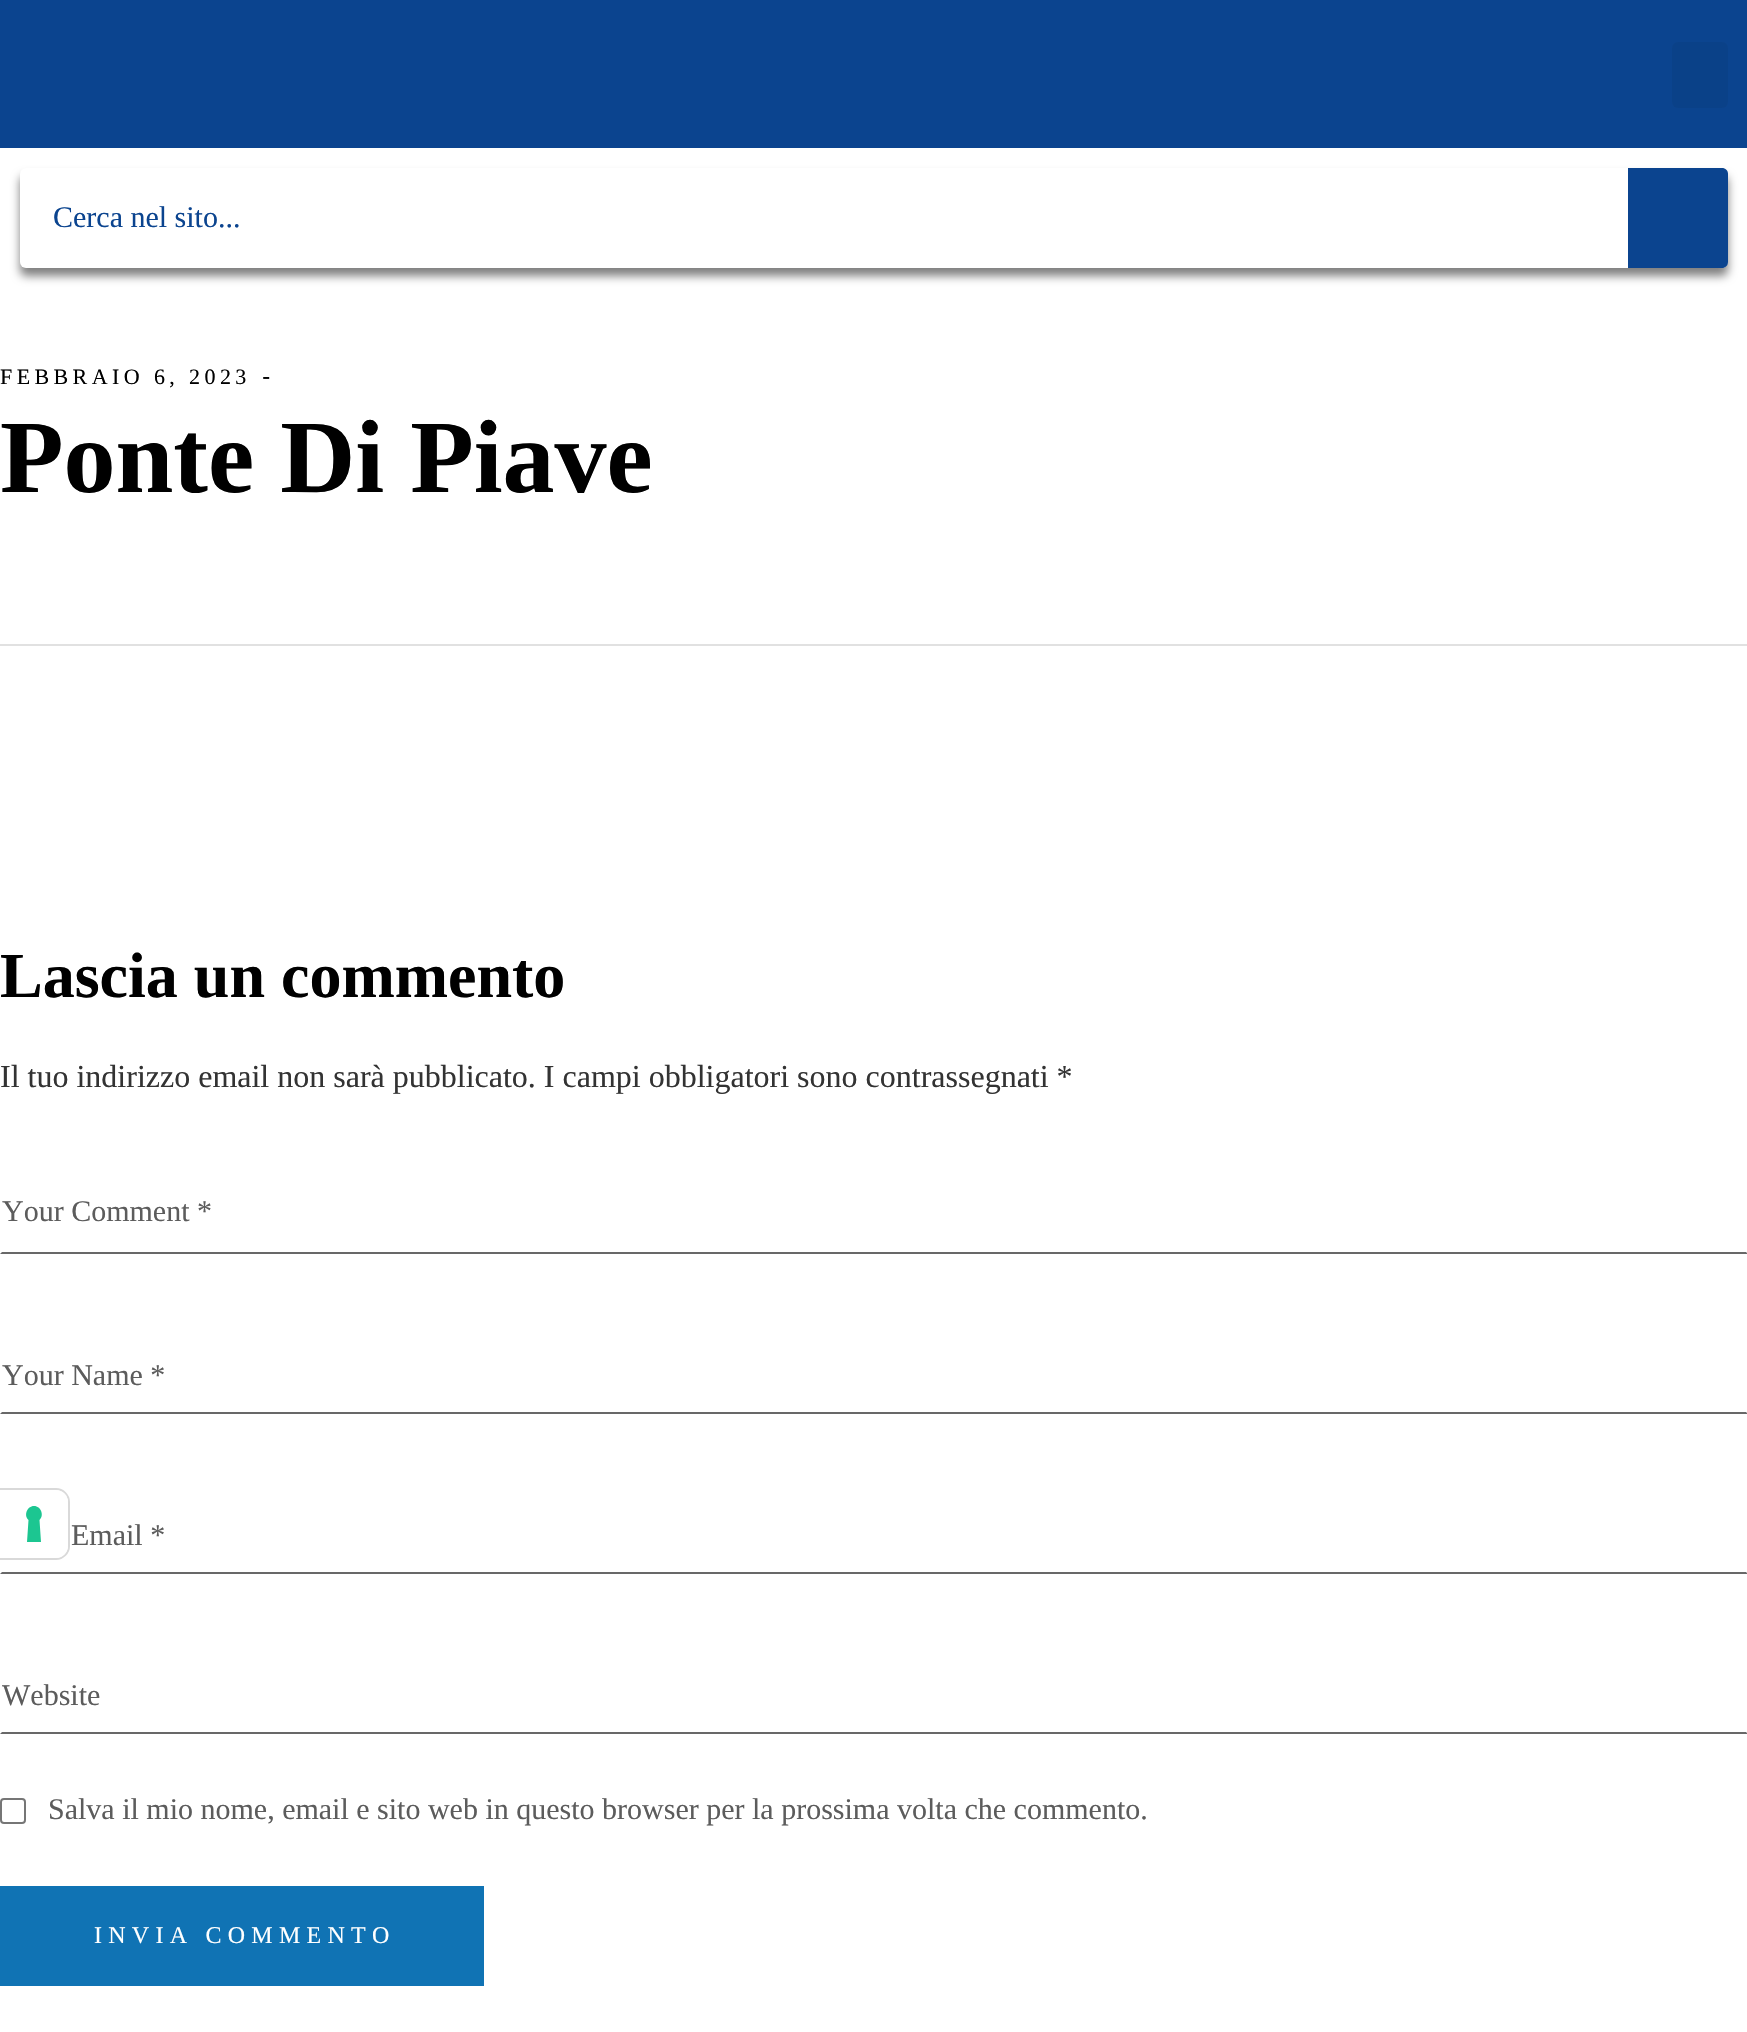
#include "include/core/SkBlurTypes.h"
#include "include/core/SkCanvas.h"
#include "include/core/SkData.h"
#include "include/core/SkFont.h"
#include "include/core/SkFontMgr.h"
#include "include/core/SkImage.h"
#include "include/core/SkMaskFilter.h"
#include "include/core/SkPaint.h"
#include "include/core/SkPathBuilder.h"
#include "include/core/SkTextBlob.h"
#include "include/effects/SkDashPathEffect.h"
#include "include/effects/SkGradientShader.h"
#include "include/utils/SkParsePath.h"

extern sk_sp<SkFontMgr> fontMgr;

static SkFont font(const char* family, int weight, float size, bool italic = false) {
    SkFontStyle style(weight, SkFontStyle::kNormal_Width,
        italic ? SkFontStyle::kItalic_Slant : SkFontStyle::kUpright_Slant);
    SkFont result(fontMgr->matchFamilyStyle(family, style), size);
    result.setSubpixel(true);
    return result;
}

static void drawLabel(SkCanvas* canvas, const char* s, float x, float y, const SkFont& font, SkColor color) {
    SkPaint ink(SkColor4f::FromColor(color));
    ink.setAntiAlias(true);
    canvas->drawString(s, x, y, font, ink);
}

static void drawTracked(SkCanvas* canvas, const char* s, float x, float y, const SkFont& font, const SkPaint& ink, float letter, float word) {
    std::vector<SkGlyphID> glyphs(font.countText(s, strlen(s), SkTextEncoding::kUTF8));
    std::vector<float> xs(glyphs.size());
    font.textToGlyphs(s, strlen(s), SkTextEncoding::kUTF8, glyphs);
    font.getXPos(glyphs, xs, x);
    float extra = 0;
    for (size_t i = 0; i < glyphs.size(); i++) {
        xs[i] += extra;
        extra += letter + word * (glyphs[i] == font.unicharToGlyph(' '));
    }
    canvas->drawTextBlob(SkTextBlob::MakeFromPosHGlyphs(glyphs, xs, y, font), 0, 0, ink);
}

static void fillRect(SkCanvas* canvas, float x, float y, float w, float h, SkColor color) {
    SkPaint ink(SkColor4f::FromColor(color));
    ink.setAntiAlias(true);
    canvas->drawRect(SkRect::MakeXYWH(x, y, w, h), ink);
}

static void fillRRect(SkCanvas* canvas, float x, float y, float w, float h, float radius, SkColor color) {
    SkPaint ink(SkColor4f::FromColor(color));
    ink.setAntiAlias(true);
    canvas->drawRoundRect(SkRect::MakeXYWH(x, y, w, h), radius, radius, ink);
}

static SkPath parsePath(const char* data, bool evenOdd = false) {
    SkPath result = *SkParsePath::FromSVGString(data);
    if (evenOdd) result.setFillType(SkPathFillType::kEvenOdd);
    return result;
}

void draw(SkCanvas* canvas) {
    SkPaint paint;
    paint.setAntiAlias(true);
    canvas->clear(0xFFFFFFFF);
    fillRect(canvas, 0, 0, 1747, 148, 0xFF0B448F);
    fillRRect(canvas, 1672, 42, 56, 66, 6, 0xFF0A4188);
    paint.setColor(0x80000000);
    paint.setMaskFilter(SkMaskFilter::MakeBlur(kNormal_SkBlurStyle, 5));
    canvas->drawRoundRect(SkRect::MakeXYWH(20, 176, 1708, 100), 6, 6, paint);
    paint.setMaskFilter(nullptr);
    fillRRect(canvas, 20, 168, 1708, 100, 6, 0xFFFFFFFF);
    SkFont font1 = font("Liberation Serif", 400, 30);
    drawLabel(canvas, "Cerca nel sito...", 53, 227, font1, 0xFF0B448F);
    paint.setColor(0xFF0B448F);
    canvas->drawPath(parsePath("M1628 168H1722C1725.5 168 1728 170.5 1728 174V262C1728 265.5 1725.5 268 1722 268H1628Z"), paint);
    fillRect(canvas, 0, 644, 1747, 2, 0xFFE1E1E1);
    SkFont font2 = font("Liberation Serif", 400, 22);
    paint.setColor(0xFF000000);
    drawTracked(canvas, "FEBBRAIO 6, 2023", 0, 384, font2, paint, 4.4f, 0);
    SkFont font3 = font("Montserrat", 500, 22);
    drawTracked(canvas, "-", 262, 384, font3, paint, 4.4f, 0);
    SkFont font4 = font("Liberation Serif", 700, 104);
    drawLabel(canvas, "Ponte Di Piave", 0, 492, font4, 0xFF000000);
    SkFont font5 = font("Liberation Serif", 700, 64);
    drawLabel(canvas, "Lascia un commento", 0, 997, font5, 0xFF000000);
    SkFont font6 = font("Liberation Serif", 400, 32);
    drawLabel(canvas, "Il tuo indirizzo email non sarà pubblicato. I campi obbligatori sono contrassegnati *", 0, 1087, font6, 0xFF333333);
    paint.setColor(0xFF686868);
    canvas->drawPath(parsePath("M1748 1254H0L2 1252H1746Z"), paint);
    drawLabel(canvas, "Your Comment *", 2, 1221, font1, 0xFF5C5C5C);
    canvas->drawPath(parsePath("M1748 1414H0L2 1412H1746Z"), paint);
    drawLabel(canvas, "Your Name *", 2, 1385, font1, 0xFF5C5C5C);
    canvas->drawPath(parsePath("M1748 1574H0L2 1572H1746Z"), paint);
    drawLabel(canvas, "Email *", 71, 1545, font1, 0xFF5C5C5C);
    canvas->drawPath(parsePath("M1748 1734H0L2 1732H1746Z"), paint);
    drawLabel(canvas, "Website", 2, 1705, font1, 0xFF5C5C5C);
    paint.setStroke(true);
    paint.setStrokeWidth(2);
    paint.setColor(0xFF767676);
    canvas->drawRoundRect(SkRect::MakeXYWH(1, 1799, 24, 24), 3, 3, paint);
    drawLabel(canvas, "Salva il mio nome, email e sito web in questo browser per la prossima volta che commento.", 48, 1819, font1, 0xFF5C5C5C);
    fillRect(canvas, 0, 1886, 484, 100, 0xFF1073B4);
    SkFont font7 = font("Liberation Serif", 400, 24);
    paint.setStroke(false);
    paint.setColor(0xFFFFFFFF);
    drawTracked(canvas, "INVIA COMMENTO", 94, 1943, font7, paint, 6.25f, 0);
    paint.setStroke(true);
    paint.setColor(0xFFD9D9D9);
    canvas->drawPath(parsePath("M-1 1489H56C63 1489 69 1495 69 1502V1546C69 1553 63 1559 56 1559H-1Z"), paint);
    paint.setStroke(false);
    paint.setColor(0xFFFFFFFF);
    canvas->drawPath(parsePath("M0 1490H56C62.5 1490 68 1495.5 68 1502V1546C68 1552.5 62.5 1558 56 1558H0Z"), paint);
    paint.setColor(0xFF1CC691);
    canvas->drawPath(parsePath("M34 1506C41 1506 44.5 1515.5 39.5 1520L41 1542H27L28.5 1520C23.5 1515.5 27 1506 34 1506Z", true), paint);
}
